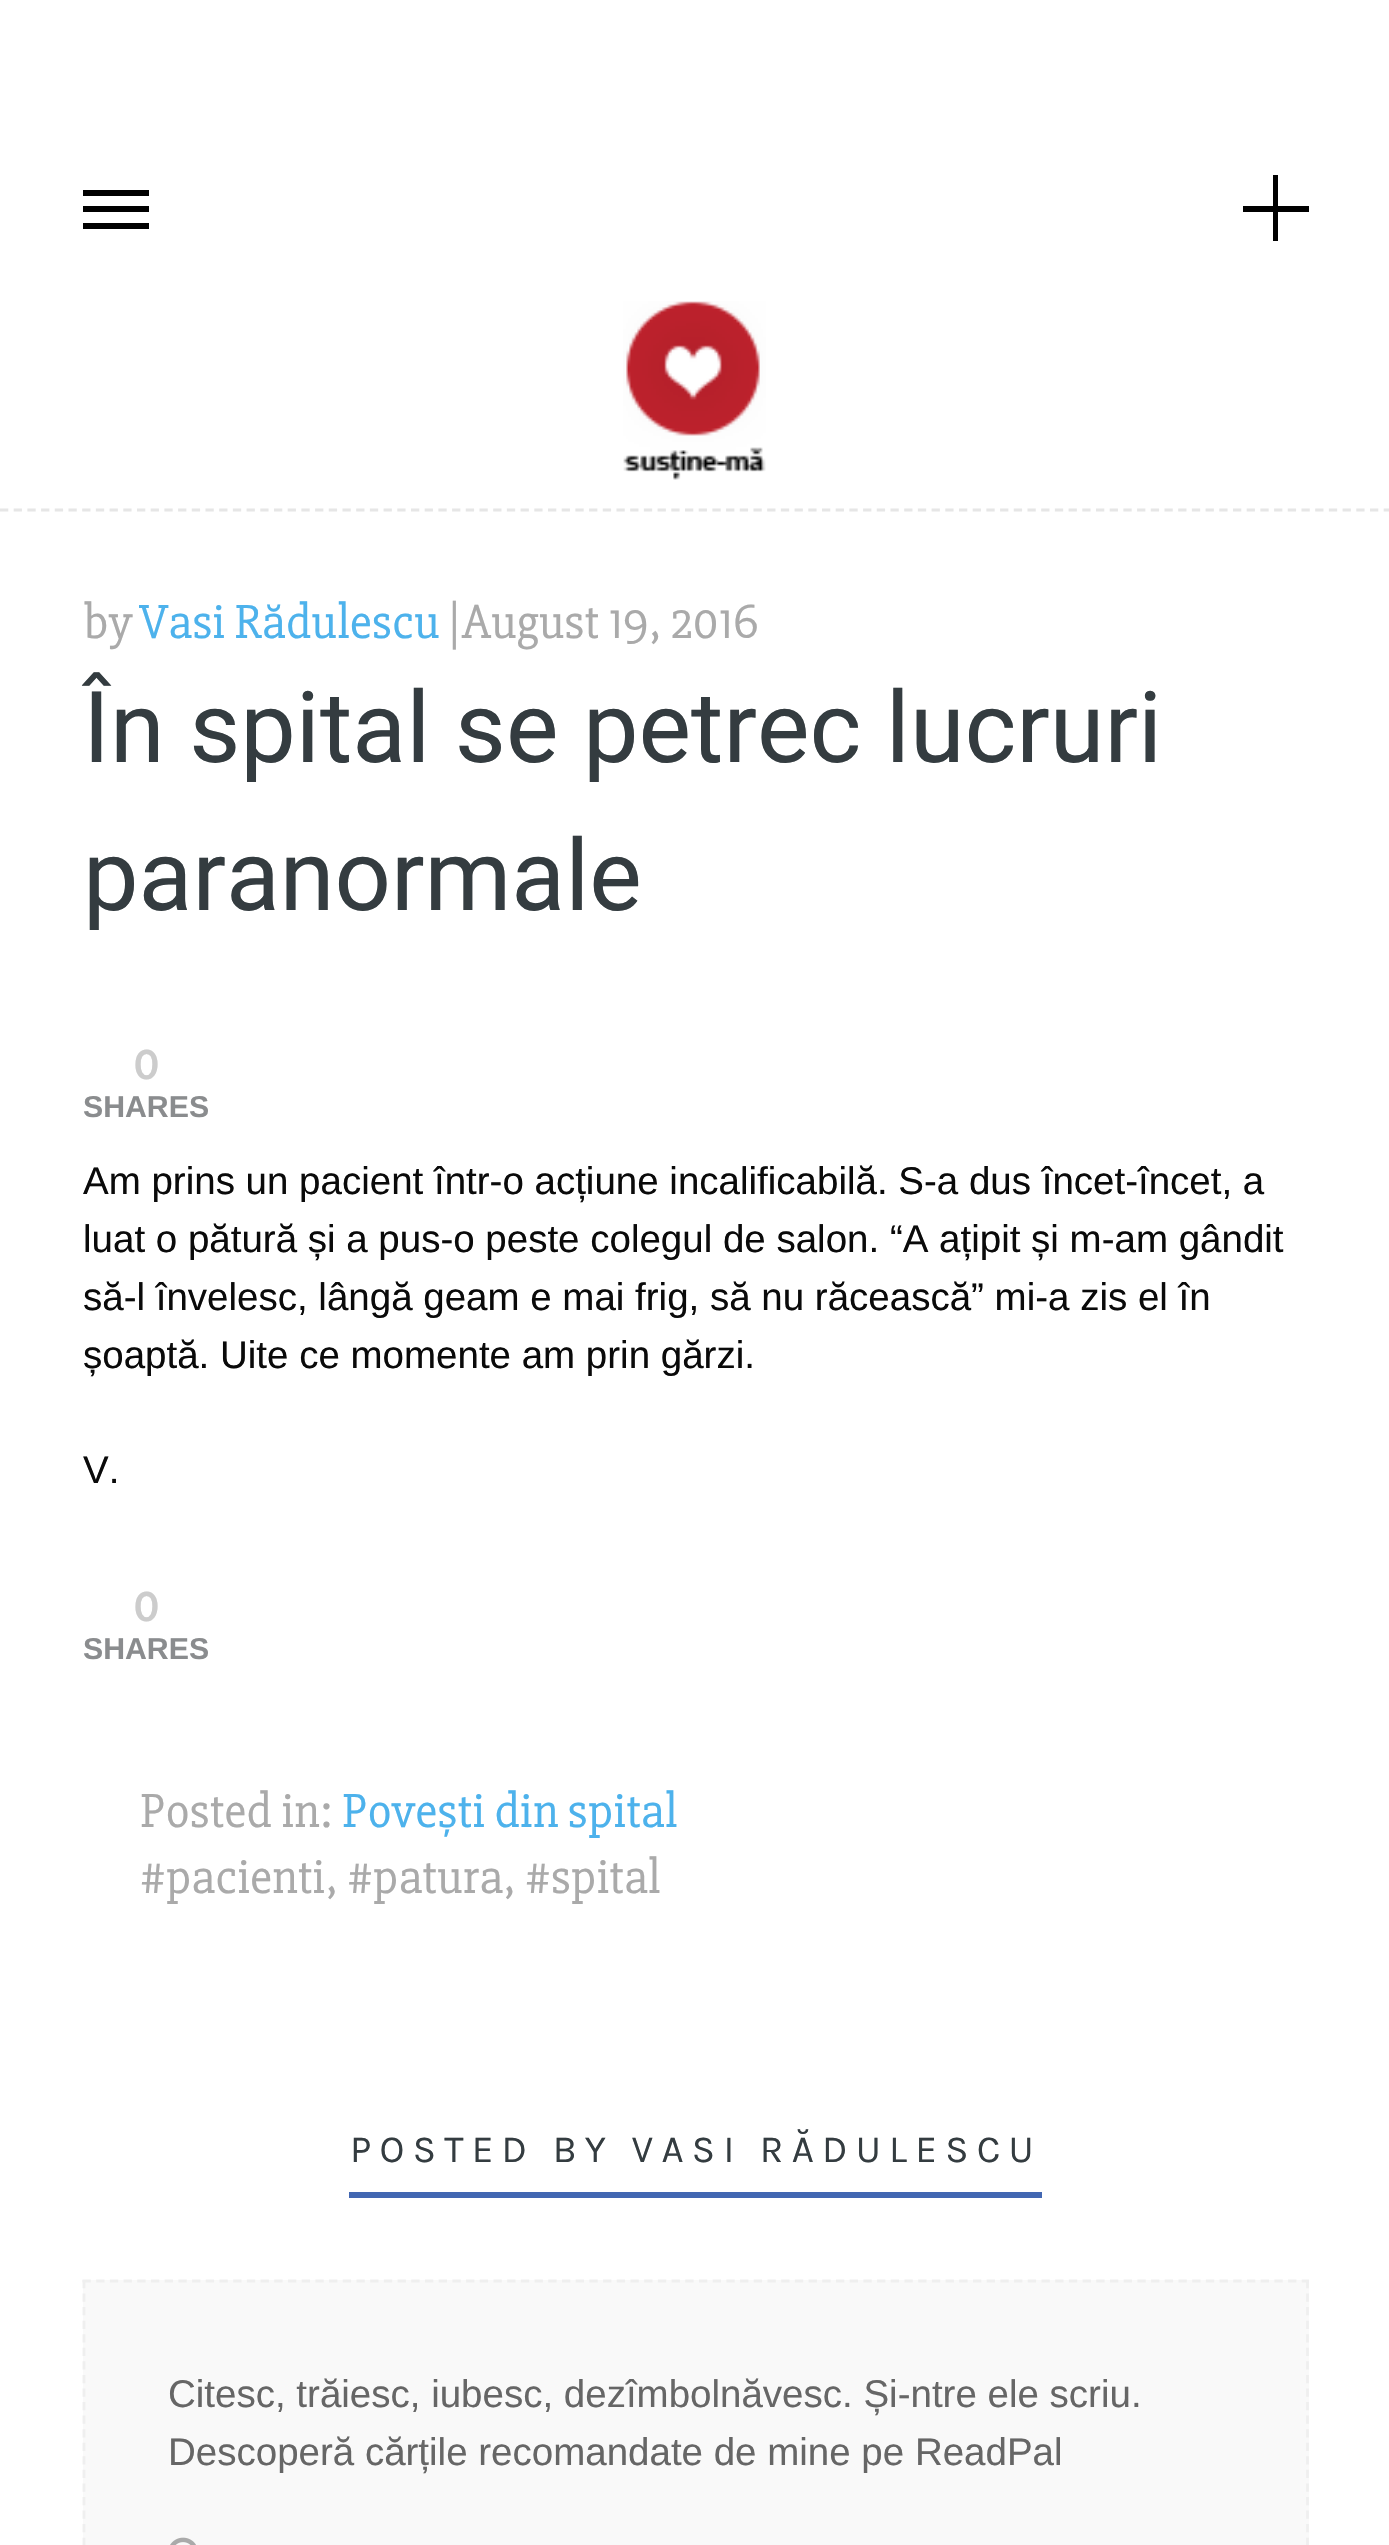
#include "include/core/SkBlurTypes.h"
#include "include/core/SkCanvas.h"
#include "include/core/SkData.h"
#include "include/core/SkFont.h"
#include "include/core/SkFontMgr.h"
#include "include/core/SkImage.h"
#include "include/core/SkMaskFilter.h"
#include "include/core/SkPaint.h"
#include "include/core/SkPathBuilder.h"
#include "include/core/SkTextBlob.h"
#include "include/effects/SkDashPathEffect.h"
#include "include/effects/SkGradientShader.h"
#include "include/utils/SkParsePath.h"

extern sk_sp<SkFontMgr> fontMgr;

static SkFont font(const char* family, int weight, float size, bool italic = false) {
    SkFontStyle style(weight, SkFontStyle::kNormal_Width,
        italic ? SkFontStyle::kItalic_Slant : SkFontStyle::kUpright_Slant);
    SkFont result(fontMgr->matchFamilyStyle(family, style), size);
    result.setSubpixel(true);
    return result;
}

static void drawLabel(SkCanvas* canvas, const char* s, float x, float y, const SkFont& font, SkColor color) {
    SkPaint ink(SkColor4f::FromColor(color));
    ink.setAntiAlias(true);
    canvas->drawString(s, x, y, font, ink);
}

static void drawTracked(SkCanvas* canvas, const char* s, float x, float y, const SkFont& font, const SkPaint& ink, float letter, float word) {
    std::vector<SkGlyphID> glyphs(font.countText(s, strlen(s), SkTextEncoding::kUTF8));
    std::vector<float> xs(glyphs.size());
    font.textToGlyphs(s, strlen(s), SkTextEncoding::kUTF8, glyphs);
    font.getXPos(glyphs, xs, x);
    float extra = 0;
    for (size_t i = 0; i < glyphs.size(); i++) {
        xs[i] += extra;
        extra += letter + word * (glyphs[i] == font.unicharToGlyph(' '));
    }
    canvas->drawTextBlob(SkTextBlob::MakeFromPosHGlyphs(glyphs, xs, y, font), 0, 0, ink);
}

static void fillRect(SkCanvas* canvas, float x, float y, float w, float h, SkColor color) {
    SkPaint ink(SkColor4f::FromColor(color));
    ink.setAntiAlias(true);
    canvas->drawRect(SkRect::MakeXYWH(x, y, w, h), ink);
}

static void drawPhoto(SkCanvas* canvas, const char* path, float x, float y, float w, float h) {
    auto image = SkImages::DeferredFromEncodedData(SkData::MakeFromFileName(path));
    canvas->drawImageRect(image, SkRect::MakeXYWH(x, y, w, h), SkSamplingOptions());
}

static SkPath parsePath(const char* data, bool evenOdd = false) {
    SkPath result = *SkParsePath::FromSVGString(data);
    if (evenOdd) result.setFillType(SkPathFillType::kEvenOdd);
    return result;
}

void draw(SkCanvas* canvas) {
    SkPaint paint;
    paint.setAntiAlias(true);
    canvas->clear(0xFFFFFFFF);
    paint.setStroke(true);
    paint.setStrokeWidth(2.8f);
    paint.setColor(0xFFE6E6E6);
    paint.setPathEffect(SkDashPathEffect::Make({{8.25f, 5.45f}}, 0));
    canvas->drawPath(parsePath("M0 510H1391.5"), paint);
    paint.setPathEffect(nullptr);
    fillRect(canvas, 83, 206, 66, 6, 0xFF000000);
    fillRect(canvas, 83, 190, 66, 6, 0xFF000000);
    fillRect(canvas, 83, 223, 66, 6, 0xFF000000);
    fillRect(canvas, 1243, 206, 66, 6, 0xFF000000);
    fillRect(canvas, 1273, 175, 5, 66, 0xFF000000);
    drawPhoto(canvas, "assets/img1.png", 623, 301, 143, 179);
    SkFont font1 = font("Slabo 27px", 400, 49.5f);
    drawLabel(canvas, "by", 83, 638, font1, 0xFFAAAAAA);
    drawLabel(canvas, "Vasi Rădulescu", 139, 638, font1, 0xFF4DB2EC);
    drawLabel(canvas, "|August 19, 2016", 447, 638, font1, 0xFFAAAAAA);
    SkFont font2 = font("Roboto", 400, 99);
    drawLabel(canvas, "În spital se petrec lucruri", 83, 762, font2, 0xFF343C40);
    drawLabel(canvas, "paranormale", 83, 910, font2, 0xFF343C40);
    SkFont font3 = font("Slabo 27px", 700, 49.5f);
    drawLabel(canvas, "0", 133, 1079, font3, 0xFFCCCCCC);
    SkFont font4 = font("Liberation Sans", 700, 30.25f);
    drawLabel(canvas, "SHARES", 83, 1117, font4, 0xFF8A8C8E);
    SkFont font5 = font("Liberation Sans", 400, 38.5f);
    drawLabel(canvas, "Am prins un pacient într-o acțiune incalificabilă. S-a dus încet-încet, a", 83, 1194, font5, 0xFF0A0A0A);
    drawLabel(canvas, "luat o pătură și a pus-o peste colegul de salon. “A ațipit și m-am gândit", 83, 1252, font5, 0xFF0A0A0A);
    drawLabel(canvas, "să-l învelesc, lângă geam e mai frig, să nu răcească” mi-a zis el în", 83, 1310, font5, 0xFF0A0A0A);
    drawLabel(canvas, "șoaptă. Uite ce momente am prin gărzi.", 83, 1368, font5, 0xFF0A0A0A);
    drawLabel(canvas, "V.", 83, 1483, font5, 0xFF0A0A0A);
    drawLabel(canvas, "0", 133, 1621, font3, 0xFFCCCCCC);
    drawLabel(canvas, "SHARES", 83, 1659, font4, 0xFF8A8C8E);
    drawLabel(canvas, "Posted in:", 140, 1827, font1, 0xFFAAAAAA);
    drawLabel(canvas, "Povești din spital", 342, 1827, font1, 0xFF4DB2EC);
    drawLabel(canvas, "#pacienti, #patura, #spital", 140, 1893, font1, 0xFFAAAAAA);
    fillRect(canvas, 349, 2192, 693, 6, 0xFF4267B2);
    SkFont font6 = font("Karla", 400, 38.5f);
    paint.setStroke(false);
    paint.setColor(0xFF343C40);
    drawTracked(canvas, "POSTED BY VASI RĂDULESCU", 350, 2162, font6, paint, 8.25f, 0);
    fillRect(canvas, 83, 2280, 1226, 265, 0xFFF9F9F9);
    paint.setStroke(true);
    paint.setColor(0xFFEFEFEF);
    paint.setPathEffect(SkDashPathEffect::Make({{8.25f, 5.45f}}, 0));
    canvas->drawPath(parsePath("M82.5 2281H1309"), paint);
    paint.setPathEffect(nullptr);
    paint.setPathEffect(SkDashPathEffect::Make({{8.25f, 5.31f}}, 0));
    canvas->drawPath(parsePath("M1307.5 2280V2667.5"), paint);
    paint.setPathEffect(nullptr);
    paint.setPathEffect(SkDashPathEffect::Make({{8.25f, 5.31f}}, 0));
    canvas->drawPath(parsePath("M84 2280V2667.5"), paint);
    paint.setPathEffect(nullptr);
    drawLabel(canvas, "Citesc, trăiesc, iubesc, dezîmbolnăvesc. Și-ntre ele scriu.", 168, 2407, font5, 0xFF666666);
    drawLabel(canvas, "Descoperă cărțile recomandate de mine pe ReadPal", 168, 2465, font5, 0xFF666666);
    drawPhoto(canvas, "assets/img2.png", 170, 2537, 26, 8);
}
